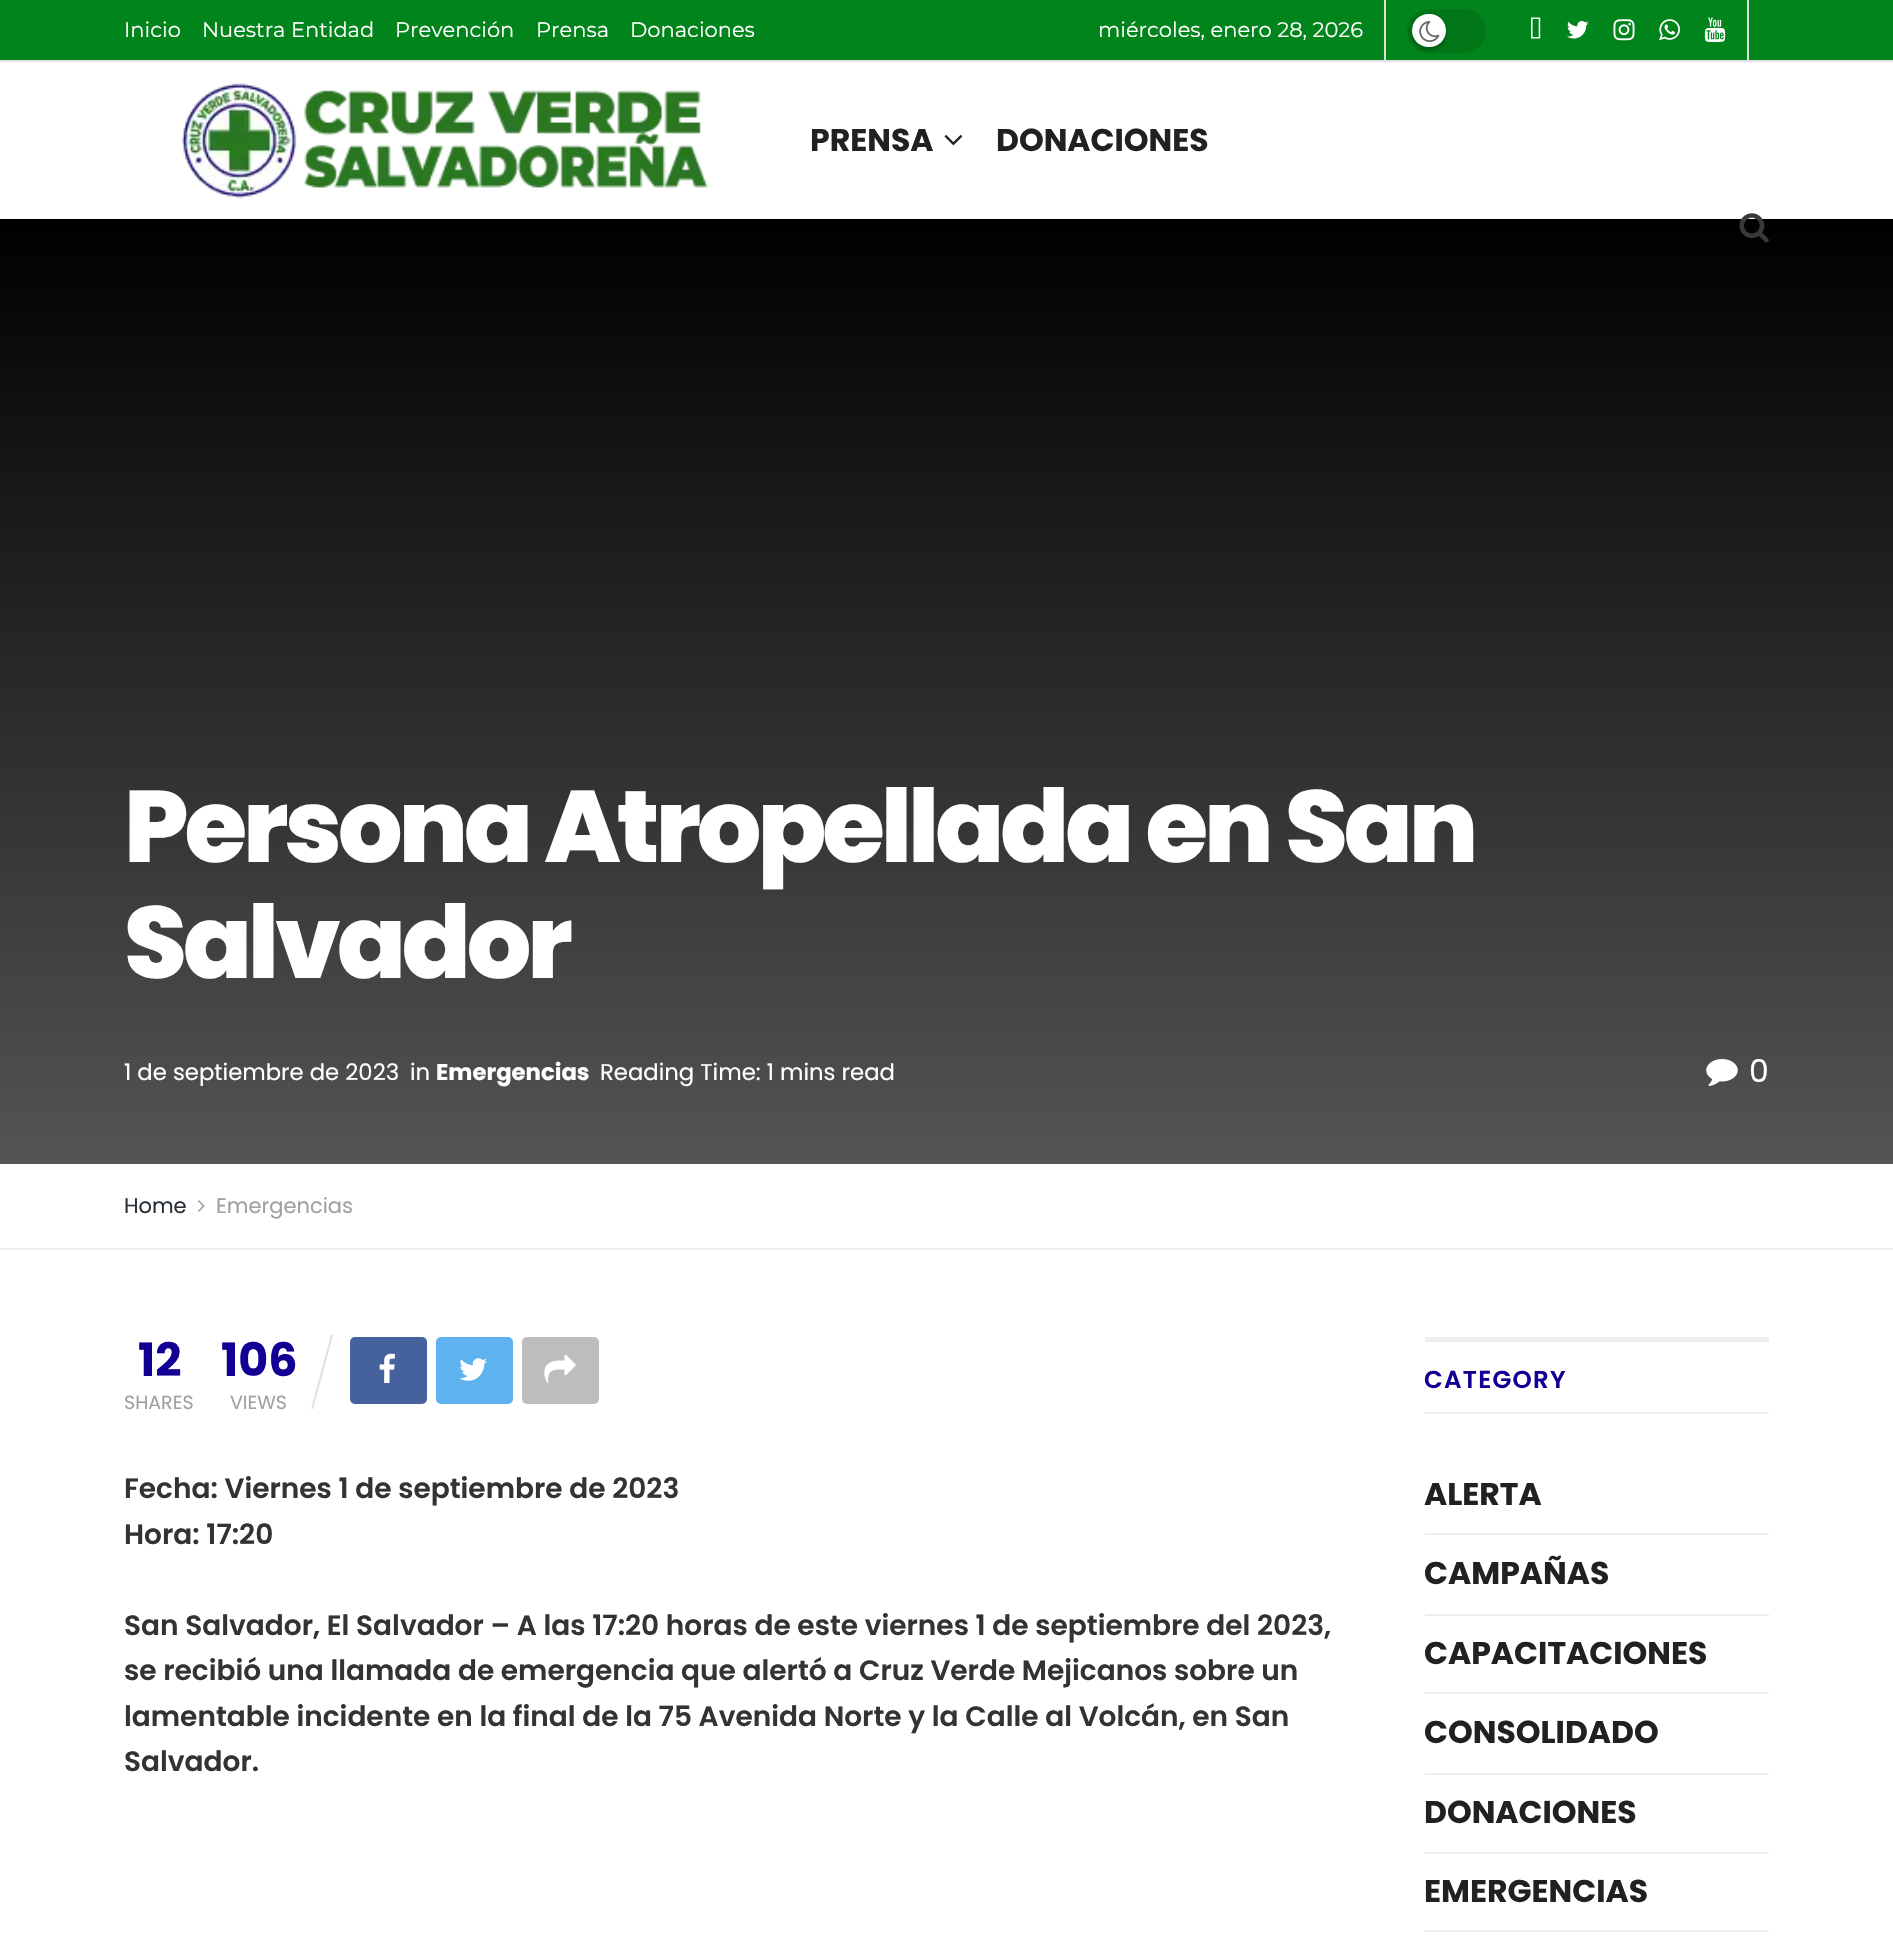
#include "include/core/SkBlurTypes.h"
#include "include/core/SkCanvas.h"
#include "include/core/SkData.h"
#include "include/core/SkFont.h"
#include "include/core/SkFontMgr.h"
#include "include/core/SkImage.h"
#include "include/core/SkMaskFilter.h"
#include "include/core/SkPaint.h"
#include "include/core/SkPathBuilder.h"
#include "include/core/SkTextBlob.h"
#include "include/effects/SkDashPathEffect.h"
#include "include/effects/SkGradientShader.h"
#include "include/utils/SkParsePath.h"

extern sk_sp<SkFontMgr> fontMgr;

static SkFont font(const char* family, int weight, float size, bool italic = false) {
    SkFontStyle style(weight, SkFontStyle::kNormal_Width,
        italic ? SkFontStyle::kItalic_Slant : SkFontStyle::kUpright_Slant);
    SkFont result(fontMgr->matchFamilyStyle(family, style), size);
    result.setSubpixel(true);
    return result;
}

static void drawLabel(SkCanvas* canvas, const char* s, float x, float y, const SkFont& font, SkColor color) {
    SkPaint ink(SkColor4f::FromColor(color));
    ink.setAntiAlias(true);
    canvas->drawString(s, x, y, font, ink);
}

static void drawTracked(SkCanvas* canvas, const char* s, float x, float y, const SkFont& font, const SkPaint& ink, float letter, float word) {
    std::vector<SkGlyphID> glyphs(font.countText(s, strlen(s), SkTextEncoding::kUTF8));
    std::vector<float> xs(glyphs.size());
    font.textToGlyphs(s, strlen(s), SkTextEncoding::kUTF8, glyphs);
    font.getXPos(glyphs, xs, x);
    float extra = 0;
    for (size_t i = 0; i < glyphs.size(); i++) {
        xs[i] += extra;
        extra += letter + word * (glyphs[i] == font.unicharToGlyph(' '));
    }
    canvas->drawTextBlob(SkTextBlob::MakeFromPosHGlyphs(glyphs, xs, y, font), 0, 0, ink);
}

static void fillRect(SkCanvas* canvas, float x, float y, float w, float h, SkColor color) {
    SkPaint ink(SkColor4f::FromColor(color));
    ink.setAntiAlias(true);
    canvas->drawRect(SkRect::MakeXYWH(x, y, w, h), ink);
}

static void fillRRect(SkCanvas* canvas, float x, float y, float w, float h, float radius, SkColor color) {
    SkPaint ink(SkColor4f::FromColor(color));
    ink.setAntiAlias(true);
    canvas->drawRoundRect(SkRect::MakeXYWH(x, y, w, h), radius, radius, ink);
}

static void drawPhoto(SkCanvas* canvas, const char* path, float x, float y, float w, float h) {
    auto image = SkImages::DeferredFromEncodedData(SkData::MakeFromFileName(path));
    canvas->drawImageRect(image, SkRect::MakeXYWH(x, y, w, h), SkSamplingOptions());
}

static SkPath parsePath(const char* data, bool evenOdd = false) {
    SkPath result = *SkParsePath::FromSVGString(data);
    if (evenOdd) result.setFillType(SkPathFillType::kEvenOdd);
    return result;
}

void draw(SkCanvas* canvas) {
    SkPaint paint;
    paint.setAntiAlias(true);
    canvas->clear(0xFFFFFFFF);
    fillRect(canvas, 0, 0, 1893, 60, 0xFF01841B);
    fillRect(canvas, 0, 60, 1893, 2, 0xFFE0E0E0);
    SkFont font1 = font("Montserrat", 100, 21);
    drawLabel(canvas, "Inicio", 124, 37, font1, 0xFFFFFFFF);
    drawLabel(canvas, "Nuestra Entidad", 202, 37, font1, 0xFFFFFFFF);
    drawLabel(canvas, "Prevención", 395, 37, font1, 0xFFFFFFFF);
    drawLabel(canvas, "Prensa", 536, 37, font1, 0xFFFFFFFF);
    drawLabel(canvas, "Donaciones", 630, 37, font1, 0xFFFFFFFF);
    fillRect(canvas, 1384, 0, 2, 60, 0xFFE0E0E0);
    drawLabel(canvas, "miércoles, enero 28, 2026", 1098, 37, font1, 0xFFFFFFFF);
    fillRRect(canvas, 1407, 9, 79, 44, 22, 0xFF017718);
    paint.setColor(0x4D000000);
    paint.setMaskFilter(SkMaskFilter::MakeBlur(kNormal_SkBlurStyle, 2.5f));
    canvas->drawRoundRect(SkRect::MakeXYWH(1412, 16, 34, 33), 16.5f, 16.5f, paint);
    paint.setMaskFilter(nullptr);
    fillRRect(canvas, 1412, 14, 34, 33, 16.5f, 0xFFFFFFFF);
    drawPhoto(canvas, "assets/img1.png", 1419, 21, 21, 21);
    fillRect(canvas, 1747, 0, 2, 61, 0xFFE0E0E0);
    drawPhoto(canvas, "assets/img2.png", 1531, 17, 10, 22);
    drawPhoto(canvas, "assets/img3.png", 1567, 21, 22, 18);
    drawPhoto(canvas, "assets/img4.png", 1613, 19, 22, 22);
    drawPhoto(canvas, "assets/img5.png", 1659, 19, 21, 22);
    drawPhoto(canvas, "assets/img6.png", 1704, 17, 22, 25);
    drawPhoto(canvas, "assets/img7.png", 181, 83, 527, 116);
    SkFont font2 = font("Poppins", 700, 31.5f);
    drawLabel(canvas, "PRENSA", 810, 151, font2, 0xFF212121);
    drawPhoto(canvas, "assets/img8.png", 944, 135, 19, 11);
    drawLabel(canvas, "DONACIONES", 996, 151, font2, 0xFF212121);
    {
        const SkColor colors[] = {0xFF000000, 0xFF545454};
        const float stops[] = {0, 1};
        const SkPoint ends[] = {{947, 219}, {947, 1164}};
        paint.setShader(SkGradientShader::MakeLinear(ends, colors, stops, 2, SkTileMode::kClamp));
        paint.setAlpha(255);
    }
    canvas->drawRect(SkRect::MakeXYWH(0, 219, 1893, 945), paint);
    drawPhoto(canvas, "assets/img9.png", 1739, 213, 30, 30);
    SkFont font3 = font("Poppins", 800, 101.5f);
    paint.setShader(nullptr);
    paint.setColor(0xFFFFFFFF);
    drawTracked(canvas, "Persona Atropellada en San", 124, 862, font3, paint, -4.05f, 0);
    drawTracked(canvas, "Salvador", 124, 978, font3, paint, -4.05f, 0);
    SkFont font4 = font("Poppins", 400, 22.75f);
    drawLabel(canvas, "1 de septiembre de 2023", 124, 1080, font4, 0xFFFFFFFF);
    drawLabel(canvas, "in", 410, 1080, font4, 0xFFFFFFFF);
    SkFont font5 = font("Poppins", 700, 22.75f);
    drawLabel(canvas, "Emergencias", 436, 1080, font5, 0xFFFFFFFF);
    drawLabel(canvas, "Reading Time: 1 mins read", 600, 1080, font4, 0xFFFFFFFF);
    drawPhoto(canvas, "assets/img10.png", 1706, 1059, 32, 27);
    SkFont font6 = font("Poppins", 400, 31.5f);
    drawLabel(canvas, "0", 1749, 1082, font6, 0xFFFFFFFF);
    fillRect(canvas, 0, 1248, 1893, 2, 0xFFEEEEEE);
    SkFont font7 = font("Poppins", 400, 21);
    drawLabel(canvas, "Home", 124, 1213, font7, 0xFF282F35);
    drawPhoto(canvas, "assets/img11.png", 198, 1200, 7, 12);
    drawLabel(canvas, "Emergencias", 216, 1213, font7, 0xFFA0A0A0);
    SkFont font8 = font("Poppins", 700, 46);
    drawLabel(canvas, "12", 138, 1376, font8, 0xFF110093);
    SkFont font9 = font("Poppins", 400, 19);
    drawLabel(canvas, "SHARES", 124, 1409, font9, 0xFFA0A0A0);
    drawLabel(canvas, "106", 221, 1376, font8, 0xFF110093);
    paint.setColor(0xFFE0E0E0);
    canvas->drawPath(parsePath("M331 1335H333L313 1409H311Z"), paint);
    drawLabel(canvas, "VIEWS", 230, 1409, font9, 0xFFA0A0A0);
    fillRRect(canvas, 350, 1337, 77, 67, 5, 0xFF45629F);
    drawPhoto(canvas, "assets/img12.png", 379, 1353, 16, 30);
    fillRRect(canvas, 436, 1337, 77, 67, 5, 0xFF5EB2EF);
    drawPhoto(canvas, "assets/img13.png", 459, 1358, 28, 23);
    fillRRect(canvas, 522, 1337, 77, 67, 5, 0xFFBDBDBD);
    drawPhoto(canvas, "assets/img14.png", 544, 1354, 32, 29);
    SkFont font10 = font("Poppins", 600, 28);
    drawLabel(canvas, "Fecha: Viernes 1 de septiembre de 2023", 124, 1498, font10, 0xFF333333);
    drawLabel(canvas, "Hora: 17:20", 124, 1544, font10, 0xFF333333);
    drawLabel(canvas, "San Salvador, El Salvador – A las 17:20 horas de este viernes 1 de septiembre del 2023,", 124, 1635, font10, 0xFF333333);
    drawLabel(canvas, "se recibió una llamada de emergencia que alertó a Cruz Verde Mejicanos sobre un", 124, 1680, font10, 0xFF333333);
    drawLabel(canvas, "lamentable incidente en la final de la 75 Avenida Norte y la Calle al Volcán, en San", 124, 1726, font10, 0xFF333333);
    drawLabel(canvas, "Salvador.", 124, 1771, font10, 0xFF333333);
    fillRect(canvas, 1425, 1337, 344, 5, 0xFFEEEEEE);
    fillRect(canvas, 1425, 1412, 344, 2, 0xFFEEEEEE);
    SkFont font11 = font("Poppins", 600, 24.5f);
    paint.setColor(0xFF110093);
    drawTracked(canvas, "CATEGORY", 1424, 1388, font11, paint, 1.25f, 0);
    drawLabel(canvas, "ALERTA", 1424, 1505, font2, 0xFF212121);
    fillRect(canvas, 1425, 1533, 344, 2, 0xFFEEEEEE);
    drawLabel(canvas, "CAMPAÑAS", 1424, 1584, font2, 0xFF212121);
    fillRect(canvas, 1425, 1614, 344, 2, 0xFFEEEEEE);
    drawLabel(canvas, "CAPACITACIONES", 1424, 1664, font2, 0xFF212121);
    fillRect(canvas, 1425, 1692, 344, 2, 0xFFEEEEEE);
    drawLabel(canvas, "CONSOLIDADO", 1424, 1743, font2, 0xFF212121);
    fillRect(canvas, 1425, 1773, 344, 2, 0xFFEEEEEE);
    drawLabel(canvas, "DONACIONES", 1424, 1823, font2, 0xFF212121);
    fillRect(canvas, 1425, 1852, 344, 2, 0xFFEEEEEE);
    drawLabel(canvas, "EMERGENCIAS", 1424, 1902, font2, 0xFF212121);
    fillRect(canvas, 1425, 1930, 344, 2, 0xFFEEEEEE);
}
